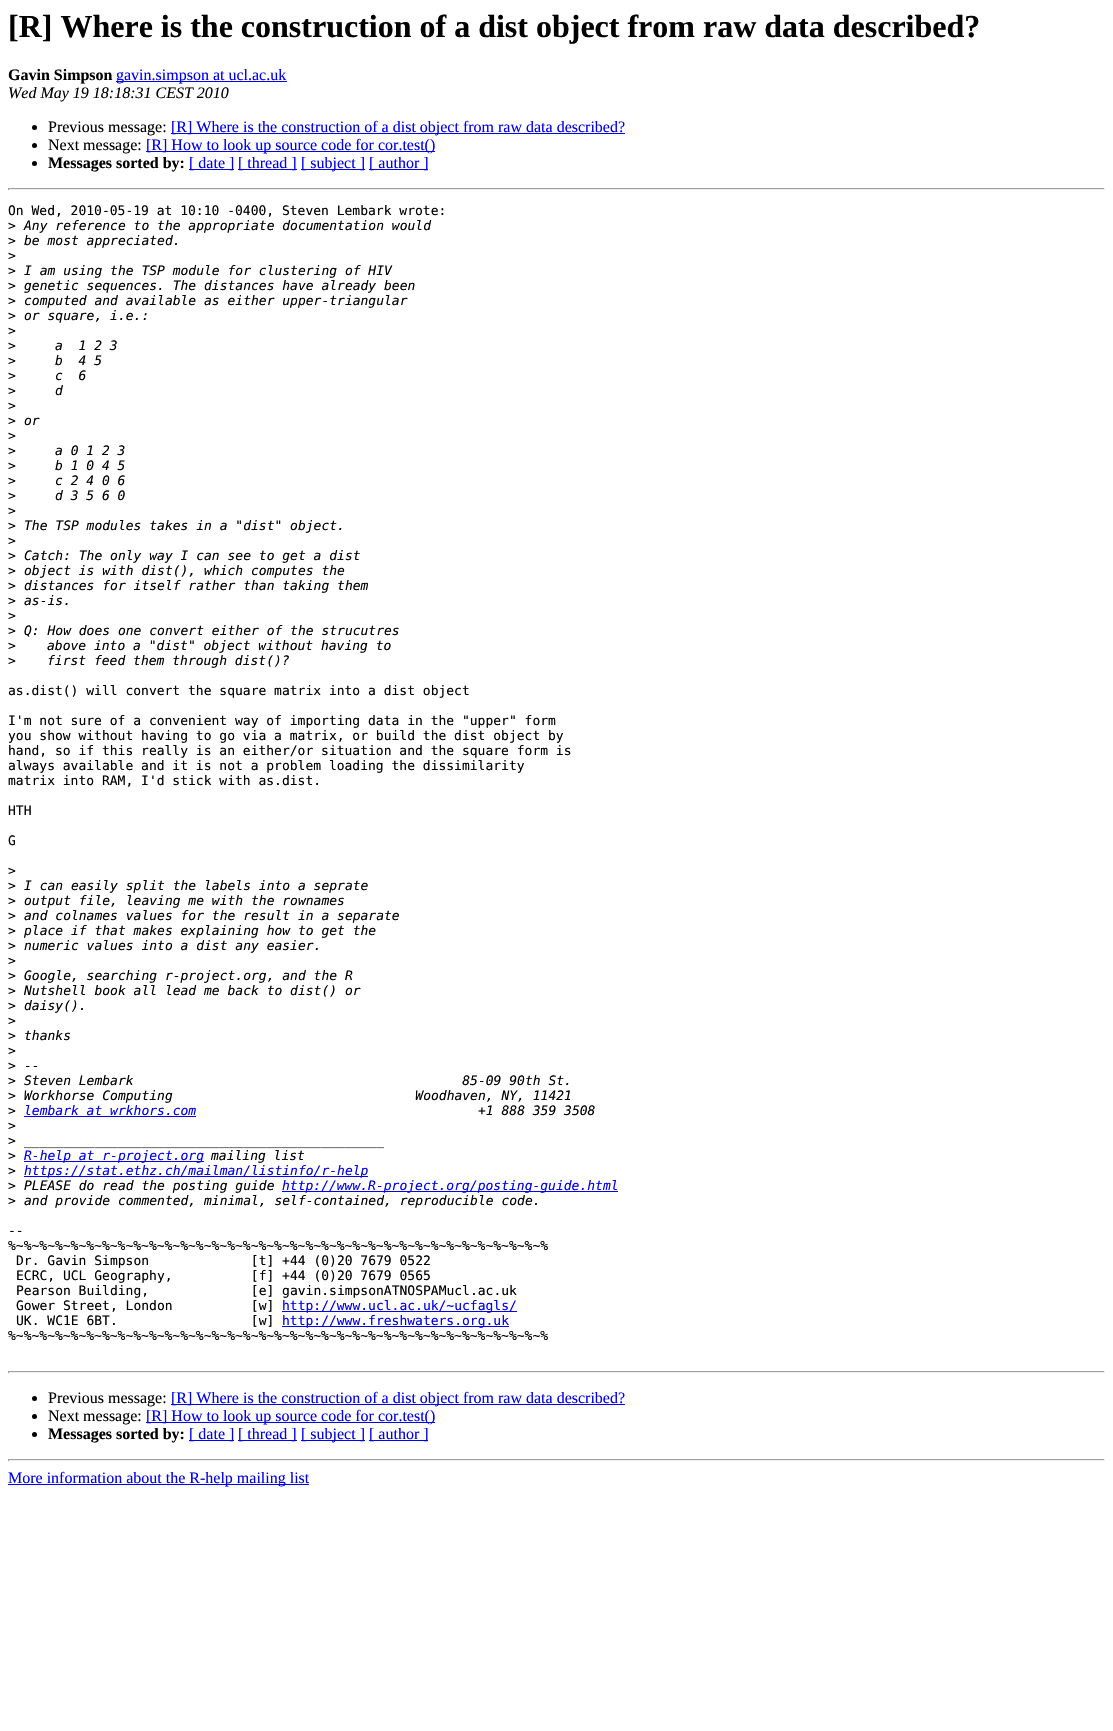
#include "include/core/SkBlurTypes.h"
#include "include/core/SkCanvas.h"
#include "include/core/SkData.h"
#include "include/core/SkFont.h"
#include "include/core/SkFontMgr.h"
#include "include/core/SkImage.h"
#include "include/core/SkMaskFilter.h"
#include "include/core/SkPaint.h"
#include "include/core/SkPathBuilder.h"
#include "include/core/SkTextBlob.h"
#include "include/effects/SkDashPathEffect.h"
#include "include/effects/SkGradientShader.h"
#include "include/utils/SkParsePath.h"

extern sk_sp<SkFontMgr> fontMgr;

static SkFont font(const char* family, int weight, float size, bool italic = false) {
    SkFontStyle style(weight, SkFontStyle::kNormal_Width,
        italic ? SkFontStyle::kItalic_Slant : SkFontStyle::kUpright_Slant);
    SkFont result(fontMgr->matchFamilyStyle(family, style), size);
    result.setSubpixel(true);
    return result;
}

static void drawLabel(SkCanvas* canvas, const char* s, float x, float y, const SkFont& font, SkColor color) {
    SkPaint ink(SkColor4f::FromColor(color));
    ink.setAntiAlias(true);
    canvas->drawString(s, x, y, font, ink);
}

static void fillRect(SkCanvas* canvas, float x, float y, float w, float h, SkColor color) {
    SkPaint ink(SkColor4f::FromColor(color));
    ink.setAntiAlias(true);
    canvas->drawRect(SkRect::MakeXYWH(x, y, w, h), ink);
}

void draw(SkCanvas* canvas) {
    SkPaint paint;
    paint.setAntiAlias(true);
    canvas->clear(0xFFFFFFFF);
    SkFont font1 = font("Liberation Serif", 700, 32);
    drawLabel(canvas, "[R] Where is the construction of a dist object from raw data described?", 8, 37, font1, 0xFF000000);
    SkFont font2 = font("Liberation Serif", 700, 16);
    drawLabel(canvas, "Gavin Simpson", 8, 80, font2, 0xFF000000);
    fillRect(canvas, 116, 81, 171, 1, 0xFF0000EE);
    SkFont font3 = font("Liberation Serif", 400, 16);
    drawLabel(canvas, "gavin.simpson at ucl.ac.uk", 116, 80, font3, 0xFF0000EE);
    SkFont font4 = font("Liberation Serif", 400, 16, true);
    drawLabel(canvas, "Wed May 19 18:18:31 CEST 2010", 8, 98, font4, 0xFF000000);
    paint.setColor(0xFF000000);
    canvas->drawCircle(34.5f, 127.5f, 2.5f, paint);
    drawLabel(canvas, "Previous message:", 48, 132, font3, 0xFF000000);
    fillRect(canvas, 171, 133, 454, 1, 0xFF0000EE);
    drawLabel(canvas, "[R] Where is the construction of a dist object from raw data described?", 171, 132, font3, 0xFF0000EE);
    canvas->drawCircle(34.5f, 145.5f, 2.5f, paint);
    drawLabel(canvas, "Next message:", 48, 150, font3, 0xFF000000);
    fillRect(canvas, 146, 151, 289, 1, 0xFF0000EE);
    drawLabel(canvas, "[R] How to look up source code for cor.test()", 146, 150, font3, 0xFF0000EE);
    canvas->drawCircle(34.5f, 163.5f, 2.5f, paint);
    drawLabel(canvas, "Messages sorted by:", 48, 168, font2, 0xFF000000);
    fillRect(canvas, 189, 169, 45, 1, 0xFF0000EE);
    drawLabel(canvas, "[ date ]", 189, 168, font3, 0xFF0000EE);
    fillRect(canvas, 238, 169, 59, 1, 0xFF0000EE);
    drawLabel(canvas, "[ thread ]", 238, 168, font3, 0xFF0000EE);
    fillRect(canvas, 301, 169, 64, 1, 0xFF0000EE);
    drawLabel(canvas, "[ subject ]", 301, 168, font3, 0xFF0000EE);
    fillRect(canvas, 369, 169, 59, 1, 0xFF0000EE);
    drawLabel(canvas, "[ author ]", 369, 168, font3, 0xFF0000EE);
    fillRect(canvas, 8, 188, 1097, 1, 0xFF9F9F9F);
    fillRect(canvas, 1104, 188, 1, 2, 0xFFEEEEEE);
    fillRect(canvas, 8, 189, 1097, 1, 0xFFEEEEEE);
    fillRect(canvas, 8, 188, 1, 2, 0xFF9F9F9F);
    SkFont font5 = font("DejaVu Sans Mono", 400, 13);
    drawLabel(canvas, "On Wed, 2010-05-19 at 10:10 -0400, Steven Lembark wrote:", 8, 215, font5, 0xFF000000);
    drawLabel(canvas, ">", 8, 230, font5, 0xFF000000);
    SkFont font6 = font("DejaVu Sans Mono", 400, 13, true);
    drawLabel(canvas, "Any reference to the appropriate documentation would", 24, 230, font6, 0xFF000000);
    drawLabel(canvas, ">", 8, 245, font5, 0xFF000000);
    drawLabel(canvas, "be most appreciated.", 24, 245, font6, 0xFF000000);
    drawLabel(canvas, ">", 8, 260, font5, 0xFF000000);
    drawLabel(canvas, ">", 8, 275, font5, 0xFF000000);
    drawLabel(canvas, "I am using the TSP module for clustering of HIV", 24, 275, font6, 0xFF000000);
    drawLabel(canvas, ">", 8, 290, font5, 0xFF000000);
    drawLabel(canvas, "genetic sequences. The distances have already been", 24, 290, font6, 0xFF000000);
    drawLabel(canvas, ">", 8, 305, font5, 0xFF000000);
    drawLabel(canvas, "computed and available as either upper-triangular", 24, 305, font6, 0xFF000000);
    drawLabel(canvas, ">", 8, 320, font5, 0xFF000000);
    drawLabel(canvas, "or square, i.e.:", 24, 320, font6, 0xFF000000);
    drawLabel(canvas, ">", 8, 335, font5, 0xFF000000);
    drawLabel(canvas, ">", 8, 350, font5, 0xFF000000);
    drawLabel(canvas, "a  1 2 3", 55, 350, font6, 0xFF000000);
    drawLabel(canvas, ">", 8, 365, font5, 0xFF000000);
    drawLabel(canvas, "b  4 5", 55, 365, font6, 0xFF000000);
    drawLabel(canvas, ">", 8, 380, font5, 0xFF000000);
    drawLabel(canvas, "c  6", 55, 380, font6, 0xFF000000);
    drawLabel(canvas, ">", 8, 395, font5, 0xFF000000);
    drawLabel(canvas, "d", 55, 395, font6, 0xFF000000);
    drawLabel(canvas, ">", 8, 410, font5, 0xFF000000);
    drawLabel(canvas, ">", 8, 425, font5, 0xFF000000);
    drawLabel(canvas, "or", 24, 425, font6, 0xFF000000);
    drawLabel(canvas, ">", 8, 440, font5, 0xFF000000);
    drawLabel(canvas, ">", 8, 455, font5, 0xFF000000);
    drawLabel(canvas, "a 0 1 2 3", 55, 455, font6, 0xFF000000);
    drawLabel(canvas, ">", 8, 470, font5, 0xFF000000);
    drawLabel(canvas, "b 1 0 4 5", 55, 470, font6, 0xFF000000);
    drawLabel(canvas, ">", 8, 485, font5, 0xFF000000);
    drawLabel(canvas, "c 2 4 0 6", 55, 485, font6, 0xFF000000);
    drawLabel(canvas, ">", 8, 500, font5, 0xFF000000);
    drawLabel(canvas, "d 3 5 6 0", 55, 500, font6, 0xFF000000);
    drawLabel(canvas, ">", 8, 515, font5, 0xFF000000);
    drawLabel(canvas, ">", 8, 530, font5, 0xFF000000);
    drawLabel(canvas, "The TSP modules takes in a \"dist\" object.", 24, 530, font6, 0xFF000000);
    drawLabel(canvas, ">", 8, 545, font5, 0xFF000000);
    drawLabel(canvas, ">", 8, 560, font5, 0xFF000000);
    drawLabel(canvas, "Catch: The only way I can see to get a dist", 24, 560, font6, 0xFF000000);
    drawLabel(canvas, ">", 8, 575, font5, 0xFF000000);
    drawLabel(canvas, "object is with dist(), which computes the", 24, 575, font6, 0xFF000000);
    drawLabel(canvas, ">", 8, 590, font5, 0xFF000000);
    drawLabel(canvas, "distances for itself rather than taking them", 24, 590, font6, 0xFF000000);
    drawLabel(canvas, ">", 8, 605, font5, 0xFF000000);
    drawLabel(canvas, "as-is.", 24, 605, font6, 0xFF000000);
    drawLabel(canvas, ">", 8, 620, font5, 0xFF000000);
    drawLabel(canvas, ">", 8, 635, font5, 0xFF000000);
    drawLabel(canvas, "Q: How does one convert either of the strucutres", 24, 635, font6, 0xFF000000);
    drawLabel(canvas, ">", 8, 650, font5, 0xFF000000);
    drawLabel(canvas, "above into a \"dist\" object without having to", 47, 650, font6, 0xFF000000);
    drawLabel(canvas, ">", 8, 665, font5, 0xFF000000);
    drawLabel(canvas, "first feed them through dist()?", 47, 665, font6, 0xFF000000);
    drawLabel(canvas, "as.dist() will convert the square matrix into a dist object", 8, 695, font5, 0xFF000000);
    drawLabel(canvas, "I'm not sure of a convenient way of importing data in the \"upper\" form", 8, 725, font5, 0xFF000000);
    drawLabel(canvas, "you show without having to go via a matrix, or build the dist object by", 8, 740, font5, 0xFF000000);
    drawLabel(canvas, "hand, so if this really is an either/or situation and the square form is", 8, 755, font5, 0xFF000000);
    drawLabel(canvas, "always available and it is not a problem loading the dissimilarity", 8, 770, font5, 0xFF000000);
    drawLabel(canvas, "matrix into RAM, I'd stick with as.dist.", 8, 785, font5, 0xFF000000);
    drawLabel(canvas, "HTH", 8, 815, font5, 0xFF000000);
    drawLabel(canvas, "G", 8, 845, font5, 0xFF000000);
    drawLabel(canvas, ">", 8, 875, font5, 0xFF000000);
    drawLabel(canvas, ">", 8, 890, font5, 0xFF000000);
    drawLabel(canvas, "I can easily split the labels into a seprate", 24, 890, font6, 0xFF000000);
    drawLabel(canvas, ">", 8, 905, font5, 0xFF000000);
    drawLabel(canvas, "output file, leaving me with the rownames", 24, 905, font6, 0xFF000000);
    drawLabel(canvas, ">", 8, 920, font5, 0xFF000000);
    drawLabel(canvas, "and colnames values for the result in a separate", 24, 920, font6, 0xFF000000);
    drawLabel(canvas, ">", 8, 935, font5, 0xFF000000);
    drawLabel(canvas, "place if that makes explaining how to get the", 24, 935, font6, 0xFF000000);
    drawLabel(canvas, ">", 8, 950, font5, 0xFF000000);
    drawLabel(canvas, "numeric values into a dist any easier.", 24, 950, font6, 0xFF000000);
    drawLabel(canvas, ">", 8, 965, font5, 0xFF000000);
    drawLabel(canvas, ">", 8, 980, font5, 0xFF000000);
    drawLabel(canvas, "Google, searching r-project.org, and the R", 24, 980, font6, 0xFF000000);
    drawLabel(canvas, ">", 8, 995, font5, 0xFF000000);
    drawLabel(canvas, "Nutshell book all lead me back to dist() or", 24, 995, font6, 0xFF000000);
    drawLabel(canvas, ">", 8, 1010, font5, 0xFF000000);
    drawLabel(canvas, "daisy().", 24, 1010, font6, 0xFF000000);
    drawLabel(canvas, ">", 8, 1025, font5, 0xFF000000);
    drawLabel(canvas, ">", 8, 1040, font5, 0xFF000000);
    drawLabel(canvas, "thanks", 24, 1040, font6, 0xFF000000);
    drawLabel(canvas, ">", 8, 1055, font5, 0xFF000000);
    drawLabel(canvas, ">", 8, 1070, font5, 0xFF000000);
    drawLabel(canvas, "--", 24, 1070, font6, 0xFF000000);
    drawLabel(canvas, ">", 8, 1085, font5, 0xFF000000);
    drawLabel(canvas, "Steven Lembark                                          85-09 90th St.", 24, 1085, font6, 0xFF000000);
    drawLabel(canvas, ">", 8, 1100, font5, 0xFF000000);
    drawLabel(canvas, "Workhorse Computing                               Woodhaven, NY, 11421", 24, 1100, font6, 0xFF000000);
    drawLabel(canvas, ">", 8, 1115, font5, 0xFF000000);
    drawLabel(canvas, "lembark at wrkhors.com", 24, 1115, font6, 0xFF0000EE);
    fillRect(canvas, 24, 1116, 172, 1, 0xFF0000EE);
    drawLabel(canvas, "+1 888 359 3508", 478, 1115, font6, 0xFF000000);
    drawLabel(canvas, ">", 8, 1130, font5, 0xFF000000);
    drawLabel(canvas, ">", 8, 1145, font5, 0xFF000000);
    drawLabel(canvas, "______________________________________________", 24, 1145, font6, 0xFF000000);
    drawLabel(canvas, ">", 8, 1160, font5, 0xFF000000);
    fillRect(canvas, 24, 1161, 180, 1, 0xFF0000EE);
    drawLabel(canvas, "R-help at r-project.org", 24, 1160, font6, 0xFF0000EE);
    drawLabel(canvas, "mailing list", 211, 1160, font6, 0xFF000000);
    drawLabel(canvas, ">", 8, 1175, font5, 0xFF000000);
    fillRect(canvas, 24, 1176, 344, 1, 0xFF0000EE);
    drawLabel(canvas, "https://stat.ethz.ch/mailman/listinfo/r-help", 24, 1175, font6, 0xFF0000EE);
    drawLabel(canvas, ">", 8, 1190, font5, 0xFF000000);
    drawLabel(canvas, "PLEASE do read the posting guide", 24, 1190, font6, 0xFF000000);
    fillRect(canvas, 282, 1191, 336, 1, 0xFF0000EE);
    drawLabel(canvas, "http://www.R-project.org/posting-guide.html", 282, 1190, font6, 0xFF0000EE);
    drawLabel(canvas, ">", 8, 1205, font5, 0xFF000000);
    drawLabel(canvas, "and provide commented, minimal, self-contained, reproducible code.", 24, 1205, font6, 0xFF000000);
    drawLabel(canvas, "--", 8, 1235, font5, 0xFF000000);
    drawLabel(canvas, "%~%~%~%~%~%~%~%~%~%~%~%~%~%~%~%~%~%~%~%~%~%~%~%~%~%~%~%~%~%~%~%~%~%~%", 8, 1250, font5, 0xFF000000);
    drawLabel(canvas, "Dr. Gavin Simpson             [t] +44 (0)20 7679 0522", 16, 1265, font5, 0xFF000000);
    drawLabel(canvas, "ECRC, UCL Geography,          [f] +44 (0)20 7679 0565", 16, 1280, font5, 0xFF000000);
    drawLabel(canvas, "Pearson Building,             [e] gavin.simpsonATNOSPAMucl.ac.uk", 16, 1295, font5, 0xFF000000);
    drawLabel(canvas, "Gower Street, London          [w]", 16, 1310, font5, 0xFF000000);
    fillRect(canvas, 282, 1311, 235, 1, 0xFF0000EE);
    drawLabel(canvas, "http://www.ucl.ac.uk/~ucfagls/", 282, 1310, font5, 0xFF0000EE);
    drawLabel(canvas, "UK. WC1E 6BT.                 [w]", 16, 1325, font5, 0xFF000000);
    fillRect(canvas, 282, 1326, 227, 1, 0xFF0000EE);
    drawLabel(canvas, "http://www.freshwaters.org.uk", 282, 1325, font5, 0xFF0000EE);
    drawLabel(canvas, "%~%~%~%~%~%~%~%~%~%~%~%~%~%~%~%~%~%~%~%~%~%~%~%~%~%~%~%~%~%~%~%~%~%~%", 8, 1340, font5, 0xFF000000);
    fillRect(canvas, 8, 1371, 1097, 1, 0xFF9F9F9F);
    fillRect(canvas, 1104, 1371, 1, 2, 0xFFEEEEEE);
    fillRect(canvas, 8, 1372, 1097, 1, 0xFFEEEEEE);
    fillRect(canvas, 8, 1371, 1, 2, 0xFF9F9F9F);
    canvas->drawCircle(34.5f, 1398.5f, 2.5f, paint);
    drawLabel(canvas, "Previous message:", 48, 1403, font3, 0xFF000000);
    fillRect(canvas, 171, 1404, 454, 1, 0xFF0000EE);
    drawLabel(canvas, "[R] Where is the construction of a dist object from raw data described?", 171, 1403, font3, 0xFF0000EE);
    canvas->drawCircle(34.5f, 1416.5f, 2.5f, paint);
    drawLabel(canvas, "Next message:", 48, 1421, font3, 0xFF000000);
    fillRect(canvas, 146, 1422, 289, 1, 0xFF0000EE);
    drawLabel(canvas, "[R] How to look up source code for cor.test()", 146, 1421, font3, 0xFF0000EE);
    canvas->drawCircle(34.5f, 1434.5f, 2.5f, paint);
    drawLabel(canvas, "Messages sorted by:", 48, 1439, font2, 0xFF000000);
    fillRect(canvas, 189, 1440, 45, 1, 0xFF0000EE);
    drawLabel(canvas, "[ date ]", 189, 1439, font3, 0xFF0000EE);
    fillRect(canvas, 238, 1440, 59, 1, 0xFF0000EE);
    drawLabel(canvas, "[ thread ]", 238, 1439, font3, 0xFF0000EE);
    fillRect(canvas, 301, 1440, 64, 1, 0xFF0000EE);
    drawLabel(canvas, "[ subject ]", 301, 1439, font3, 0xFF0000EE);
    fillRect(canvas, 369, 1440, 59, 1, 0xFF0000EE);
    drawLabel(canvas, "[ author ]", 369, 1439, font3, 0xFF0000EE);
    fillRect(canvas, 8, 1459, 1097, 1, 0xFF9F9F9F);
    fillRect(canvas, 1104, 1459, 1, 2, 0xFFEEEEEE);
    fillRect(canvas, 8, 1460, 1097, 1, 0xFFEEEEEE);
    fillRect(canvas, 8, 1459, 1, 2, 0xFF9F9F9F);
    fillRect(canvas, 8, 1484, 301, 1, 0xFF0000EE);
    drawLabel(canvas, "More information about the R-help mailing list", 8, 1483, font3, 0xFF0000EE);
}
